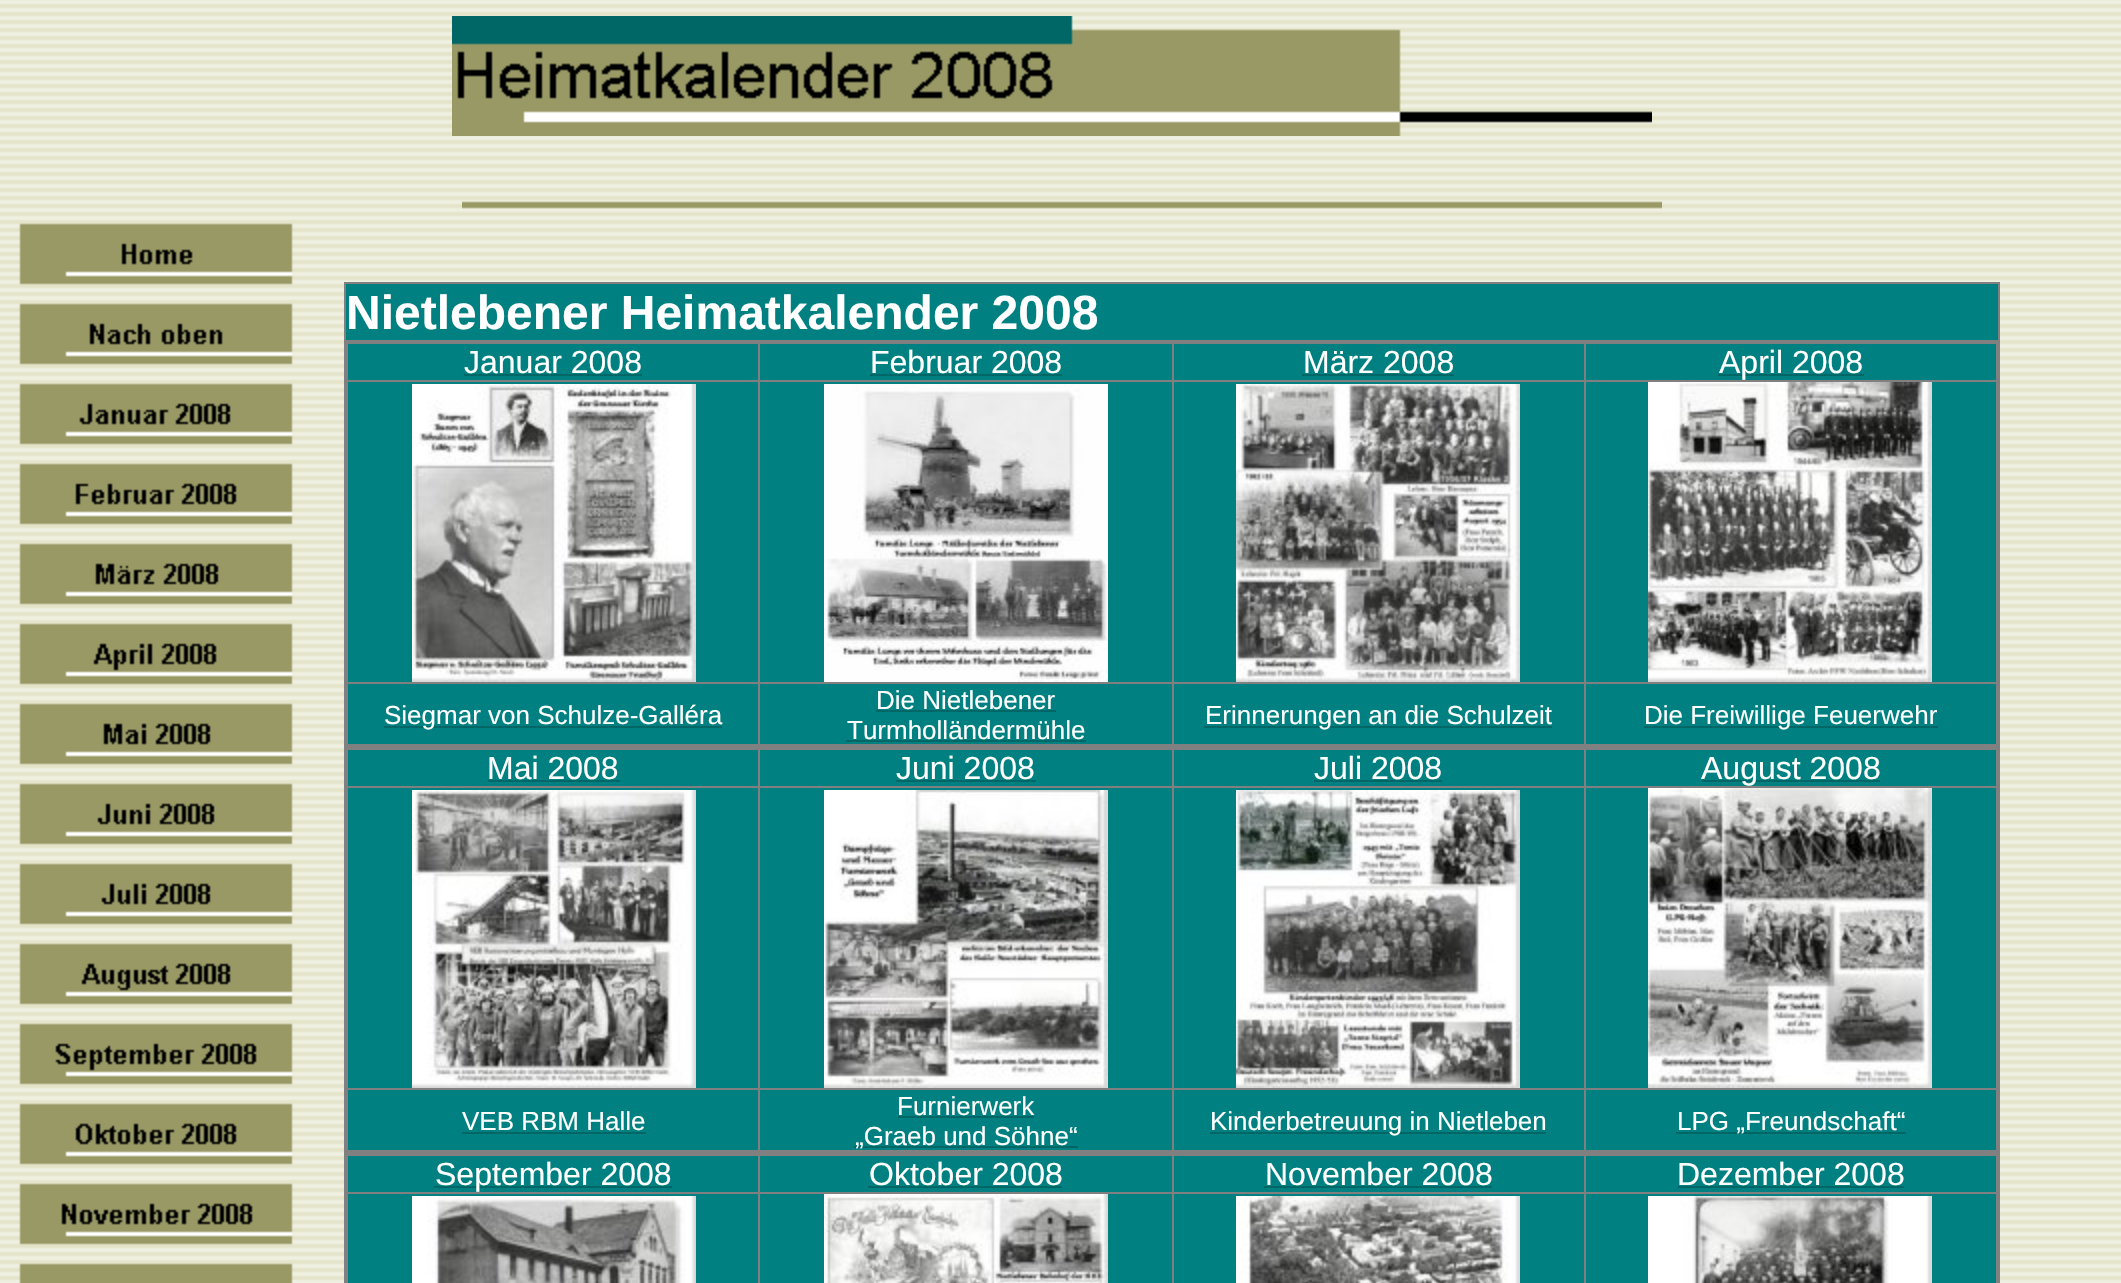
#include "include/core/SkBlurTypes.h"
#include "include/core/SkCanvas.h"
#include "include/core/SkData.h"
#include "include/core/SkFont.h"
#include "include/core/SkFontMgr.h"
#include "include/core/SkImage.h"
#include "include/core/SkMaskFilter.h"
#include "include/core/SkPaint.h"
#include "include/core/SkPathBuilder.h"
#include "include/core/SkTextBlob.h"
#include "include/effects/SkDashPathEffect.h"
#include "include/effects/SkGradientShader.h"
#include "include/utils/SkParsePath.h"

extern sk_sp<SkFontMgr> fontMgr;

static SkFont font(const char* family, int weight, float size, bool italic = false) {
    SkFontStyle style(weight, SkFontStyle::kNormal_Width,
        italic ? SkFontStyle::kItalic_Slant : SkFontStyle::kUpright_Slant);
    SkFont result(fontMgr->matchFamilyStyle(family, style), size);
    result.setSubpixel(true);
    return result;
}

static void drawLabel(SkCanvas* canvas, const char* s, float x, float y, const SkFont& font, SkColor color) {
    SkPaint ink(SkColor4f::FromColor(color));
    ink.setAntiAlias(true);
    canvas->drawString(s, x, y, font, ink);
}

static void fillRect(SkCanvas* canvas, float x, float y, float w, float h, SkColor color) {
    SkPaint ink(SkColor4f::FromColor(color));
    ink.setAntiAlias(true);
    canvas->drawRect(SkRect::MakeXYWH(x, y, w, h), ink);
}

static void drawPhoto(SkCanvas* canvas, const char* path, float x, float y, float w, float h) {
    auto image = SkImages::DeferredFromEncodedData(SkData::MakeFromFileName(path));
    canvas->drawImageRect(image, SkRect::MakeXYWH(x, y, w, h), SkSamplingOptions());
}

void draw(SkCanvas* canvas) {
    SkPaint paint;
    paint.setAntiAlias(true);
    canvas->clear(0xFFFFFFFF);
    drawPhoto(canvas, "assets/img1.png", 0, 0, 2121, 1283);
    drawPhoto(canvas, "assets/img2.png", 452, 16, 1200, 120);
    drawPhoto(canvas, "assets/img3.png", 462, 201, 1200, 8);
    drawPhoto(canvas, "assets/img4.png", 19, 223, 274, 62);
    drawPhoto(canvas, "assets/img5.png", 19, 303, 274, 62);
    drawPhoto(canvas, "assets/img6.png", 19, 383, 274, 62);
    drawPhoto(canvas, "assets/img7.png", 19, 463, 274, 62);
    drawPhoto(canvas, "assets/img8.png", 19, 543, 274, 62);
    drawPhoto(canvas, "assets/img9.png", 19, 623, 274, 62);
    drawPhoto(canvas, "assets/img10.png", 19, 703, 274, 62);
    drawPhoto(canvas, "assets/img11.png", 19, 783, 274, 62);
    drawPhoto(canvas, "assets/img12.png", 19, 863, 274, 62);
    drawPhoto(canvas, "assets/img13.png", 19, 943, 274, 62);
    drawPhoto(canvas, "assets/img14.png", 19, 1023, 274, 62);
    drawPhoto(canvas, "assets/img15.png", 19, 1103, 274, 62);
    drawPhoto(canvas, "assets/img16.png", 19, 1183, 274, 62);
    drawPhoto(canvas, "assets/img17.png", 19, 1263, 274, 20);
    fillRect(canvas, 344, 282, 1656, 2, 0xFF808080);
    fillRect(canvas, 1998, 282, 2, 1001, 0xFF808080);
    fillRect(canvas, 344, 282, 2, 1001, 0xFF808080);
    fillRect(canvas, 346, 284, 1652, 56, 0xFF008080);
    SkFont font1 = font("Liberation Sans", 700, 48);
    drawLabel(canvas, "Nietlebener Heimatkalender 2008", 346, 329, font1, 0xFFFFFFFF);
    fillRect(canvas, 348, 344, 1648, 400, 0xFF008080);
    fillRect(canvas, 344, 340, 1656, 2, 0xFF808080);
    fillRect(canvas, 346, 342, 1652, 2, 0xFF808080);
    fillRect(canvas, 1996, 342, 2, 404, 0xFF808080);
    fillRect(canvas, 346, 744, 1652, 2, 0xFF808080);
    fillRect(canvas, 346, 342, 2, 404, 0xFF808080);
    SkFont font2 = font("Liberation Sans", 400, 32);
    drawLabel(canvas, "Januar 2008", 464, 373, font2, 0xFFFFFFFF);
    fillRect(canvas, 464, 374, 178, 2, 0xFF006666);
    fillRect(canvas, 1584, 380, 414, 2, 0xFF808080);
    fillRect(canvas, 1584, 682, 414, 2, 0xFF808080);
    fillRect(canvas, 1584, 682, 2, 64, 0xFF808080);
    fillRect(canvas, 1172, 682, 414, 2, 0xFF808080);
    fillRect(canvas, 1584, 380, 2, 304, 0xFF808080);
    fillRect(canvas, 1172, 380, 414, 2, 0xFF808080);
    fillRect(canvas, 1172, 682, 2, 64, 0xFF808080);
    fillRect(canvas, 758, 682, 416, 2, 0xFF808080);
    fillRect(canvas, 1172, 380, 2, 304, 0xFF808080);
    fillRect(canvas, 758, 380, 416, 2, 0xFF808080);
    fillRect(canvas, 758, 682, 2, 64, 0xFF808080);
    fillRect(canvas, 346, 682, 414, 2, 0xFF808080);
    fillRect(canvas, 758, 380, 2, 304, 0xFF808080);
    fillRect(canvas, 346, 380, 414, 2, 0xFF808080);
    fillRect(canvas, 758, 342, 2, 40, 0xFF808080);
    drawLabel(canvas, "Februar 2008", 870, 373, font2, 0xFFFFFFFF);
    fillRect(canvas, 870, 374, 192, 2, 0xFF006666);
    fillRect(canvas, 1172, 342, 2, 40, 0xFF808080);
    drawLabel(canvas, "März 2008", 1303, 373, font2, 0xFFFFFFFF);
    fillRect(canvas, 1302, 374, 152, 2, 0xFF006666);
    fillRect(canvas, 1584, 342, 2, 40, 0xFF808080);
    fillRect(canvas, 1718, 374, 146, 2, 0xFF006666);
    drawLabel(canvas, "April 2008", 1719, 373, font2, 0xFFFFFFFF);
    drawPhoto(canvas, "assets/img18.png", 412, 384, 284, 298);
    drawPhoto(canvas, "assets/img19.png", 824, 384, 284, 298);
    drawPhoto(canvas, "assets/img20.png", 1236, 384, 284, 298);
    drawPhoto(canvas, "assets/img21.png", 1648, 382, 284, 300);
    fillRect(canvas, 384, 726, 338, 2, 0xFF006666);
    SkFont font3 = font("Liberation Sans", 400, 26);
    drawLabel(canvas, "Siegmar von Schulze-Galléra", 384, 724, font3, 0xFFFFFFFF);
    drawLabel(canvas, "Die Nietlebener", 876, 709, font3, 0xFFFFFFFF);
    fillRect(canvas, 876, 710, 180, 2, 0xFF006666);
    drawLabel(canvas, "Turmholländermühle", 847, 739, font3, 0xFFFFFFFF);
    fillRect(canvas, 846, 740, 240, 2, 0xFF006666);
    fillRect(canvas, 1204, 726, 348, 2, 0xFF006666);
    drawLabel(canvas, "Erinnerungen an die Schulzeit", 1205, 724, font3, 0xFFFFFFFF);
    fillRect(canvas, 1644, 726, 294, 2, 0xFF006666);
    drawLabel(canvas, "Die Freiwillige Feuerwehr", 1644, 724, font3, 0xFFFFFFFF);
    fillRect(canvas, 348, 750, 1648, 400, 0xFF008080);
    fillRect(canvas, 344, 746, 1656, 2, 0xFF808080);
    fillRect(canvas, 346, 748, 1652, 2, 0xFF808080);
    fillRect(canvas, 1996, 748, 2, 404, 0xFF808080);
    fillRect(canvas, 346, 1150, 1652, 2, 0xFF808080);
    fillRect(canvas, 346, 748, 2, 404, 0xFF808080);
    drawLabel(canvas, "Mai 2008", 487, 779, font2, 0xFFFFFFFF);
    fillRect(canvas, 488, 780, 132, 2, 0xFF006666);
    fillRect(canvas, 1584, 786, 414, 2, 0xFF808080);
    fillRect(canvas, 1584, 1088, 414, 2, 0xFF808080);
    fillRect(canvas, 1584, 1088, 2, 64, 0xFF808080);
    fillRect(canvas, 1172, 1088, 414, 2, 0xFF808080);
    fillRect(canvas, 1584, 786, 2, 304, 0xFF808080);
    fillRect(canvas, 1172, 786, 414, 2, 0xFF808080);
    fillRect(canvas, 1172, 1088, 2, 64, 0xFF808080);
    fillRect(canvas, 758, 1088, 416, 2, 0xFF808080);
    fillRect(canvas, 1172, 786, 2, 304, 0xFF808080);
    fillRect(canvas, 758, 786, 416, 2, 0xFF808080);
    fillRect(canvas, 758, 1088, 2, 64, 0xFF808080);
    fillRect(canvas, 346, 1088, 414, 2, 0xFF808080);
    fillRect(canvas, 758, 786, 2, 304, 0xFF808080);
    fillRect(canvas, 346, 786, 414, 2, 0xFF808080);
    fillRect(canvas, 758, 748, 2, 40, 0xFF808080);
    drawLabel(canvas, "Juni 2008", 896, 779, font2, 0xFFFFFFFF);
    fillRect(canvas, 896, 780, 140, 2, 0xFF006666);
    fillRect(canvas, 1172, 748, 2, 40, 0xFF808080);
    drawLabel(canvas, "Juli 2008", 1314, 779, font2, 0xFFFFFFFF);
    fillRect(canvas, 1314, 780, 128, 2, 0xFF006666);
    fillRect(canvas, 1584, 748, 2, 40, 0xFF808080);
    fillRect(canvas, 1702, 780, 178, 2, 0xFF006666);
    drawLabel(canvas, "August 2008", 1701, 779, font2, 0xFFFFFFFF);
    drawPhoto(canvas, "assets/img22.png", 412, 790, 284, 298);
    drawPhoto(canvas, "assets/img23.png", 824, 790, 284, 298);
    drawPhoto(canvas, "assets/img24.png", 1236, 790, 284, 298);
    drawPhoto(canvas, "assets/img25.png", 1648, 788, 284, 300);
    drawLabel(canvas, "VEB RBM Halle", 462, 1130, font3, 0xFFFFFFFF);
    fillRect(canvas, 462, 1132, 184, 2, 0xFF006666);
    drawLabel(canvas, "Furnierwerk", 897, 1115, font3, 0xFFFFFFFF);
    fillRect(canvas, 898, 1116, 136, 2, 0xFF006666);
    fillRect(canvas, 854, 1146, 224, 2, 0xFF006666);
    drawLabel(canvas, "„Graeb und Söhne“", 855, 1145, font3, 0xFFFFFFFF);
    fillRect(canvas, 1210, 1132, 336, 2, 0xFF006666);
    drawLabel(canvas, "Kinderbetreuung in Nietleben", 1210, 1130, font3, 0xFFFFFFFF);
    fillRect(canvas, 1676, 1132, 230, 2, 0xFF006666);
    drawLabel(canvas, "LPG „Freundschaft“", 1677, 1130, font3, 0xFFFFFFFF);
    fillRect(canvas, 348, 1156, 1648, 127, 0xFF008080);
    fillRect(canvas, 344, 1152, 1656, 2, 0xFF808080);
    fillRect(canvas, 346, 1154, 1652, 2, 0xFF808080);
    fillRect(canvas, 1996, 1154, 2, 129, 0xFF808080);
    fillRect(canvas, 346, 1154, 2, 129, 0xFF808080);
    fillRect(canvas, 434, 1186, 238, 2, 0xFF006666);
    drawLabel(canvas, "September 2008", 435, 1185, font2, 0xFFFFFFFF);
    fillRect(canvas, 1584, 1192, 414, 2, 0xFF808080);
    fillRect(canvas, 1584, 1192, 2, 91, 0xFF808080);
    fillRect(canvas, 1172, 1192, 414, 2, 0xFF808080);
    fillRect(canvas, 1172, 1192, 2, 91, 0xFF808080);
    fillRect(canvas, 758, 1192, 416, 2, 0xFF808080);
    fillRect(canvas, 758, 1192, 2, 91, 0xFF808080);
    fillRect(canvas, 346, 1192, 414, 2, 0xFF808080);
    fillRect(canvas, 758, 1154, 2, 40, 0xFF808080);
    drawLabel(canvas, "Oktober 2008", 869, 1185, font2, 0xFFFFFFFF);
    fillRect(canvas, 868, 1186, 194, 2, 0xFF006666);
    fillRect(canvas, 1172, 1154, 2, 40, 0xFF808080);
    drawLabel(canvas, "November 2008", 1265, 1185, font2, 0xFFFFFFFF);
    fillRect(canvas, 1264, 1186, 228, 2, 0xFF006666);
    fillRect(canvas, 1584, 1154, 2, 40, 0xFF808080);
    drawLabel(canvas, "Dezember 2008", 1677, 1185, font2, 0xFFFFFFFF);
    fillRect(canvas, 1678, 1186, 226, 2, 0xFF006666);
    drawPhoto(canvas, "assets/img26.png", 412, 1196, 284, 87);
    drawPhoto(canvas, "assets/img27.png", 824, 1194, 284, 89);
    drawPhoto(canvas, "assets/img28.png", 1236, 1196, 284, 87);
    drawPhoto(canvas, "assets/img29.png", 1648, 1196, 284, 87);
}
